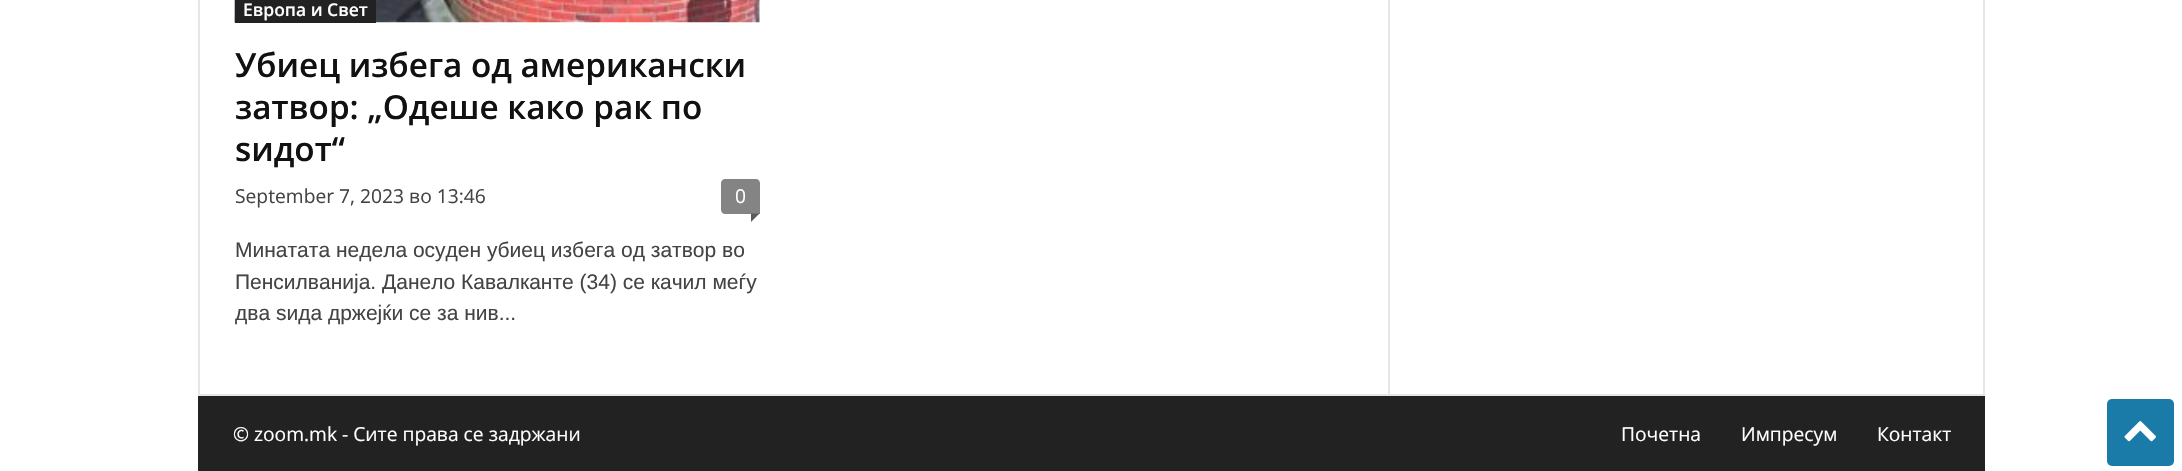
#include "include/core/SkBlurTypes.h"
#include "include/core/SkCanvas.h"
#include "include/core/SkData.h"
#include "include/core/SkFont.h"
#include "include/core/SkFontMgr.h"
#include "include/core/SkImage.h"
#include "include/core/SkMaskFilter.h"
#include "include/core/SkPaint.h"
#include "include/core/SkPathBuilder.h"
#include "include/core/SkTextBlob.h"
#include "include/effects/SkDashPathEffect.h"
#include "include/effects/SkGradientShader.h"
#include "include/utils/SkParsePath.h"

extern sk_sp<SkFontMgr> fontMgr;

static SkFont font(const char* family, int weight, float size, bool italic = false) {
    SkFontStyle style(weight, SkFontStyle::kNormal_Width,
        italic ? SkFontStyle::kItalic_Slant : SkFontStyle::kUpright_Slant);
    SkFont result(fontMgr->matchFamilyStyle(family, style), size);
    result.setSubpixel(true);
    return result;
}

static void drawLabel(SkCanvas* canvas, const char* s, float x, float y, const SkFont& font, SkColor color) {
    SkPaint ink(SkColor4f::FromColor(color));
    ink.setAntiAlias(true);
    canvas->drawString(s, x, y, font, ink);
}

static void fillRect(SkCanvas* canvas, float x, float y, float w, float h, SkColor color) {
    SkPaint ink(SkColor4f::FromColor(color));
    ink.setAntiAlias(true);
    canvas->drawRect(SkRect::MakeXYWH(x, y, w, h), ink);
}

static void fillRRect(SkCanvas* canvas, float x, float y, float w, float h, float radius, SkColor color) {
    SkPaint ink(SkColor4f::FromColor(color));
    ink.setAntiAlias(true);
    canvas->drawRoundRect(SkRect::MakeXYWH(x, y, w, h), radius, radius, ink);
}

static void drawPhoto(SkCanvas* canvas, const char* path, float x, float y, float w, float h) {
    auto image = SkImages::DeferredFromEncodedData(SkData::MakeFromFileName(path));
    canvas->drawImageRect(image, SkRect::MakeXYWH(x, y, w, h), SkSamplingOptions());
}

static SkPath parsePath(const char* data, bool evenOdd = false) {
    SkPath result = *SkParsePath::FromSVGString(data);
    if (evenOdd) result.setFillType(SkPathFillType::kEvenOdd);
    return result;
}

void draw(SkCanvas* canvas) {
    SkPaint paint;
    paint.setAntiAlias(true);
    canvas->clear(0xFFFFFFFF);
    fillRect(canvas, 198, 394, 1787, 2, 0xFFE6E6E6);
    fillRect(canvas, 198, 0, 2, 394, 0xFFE6E6E6);
    drawPhoto(canvas, "assets/img1.png", 234, 0, 526, 23);
    paint.setColor(0xFF222222);
    canvas->drawPath(parsePath("M235-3H371C374-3 376-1 376 2V23H235Z"), paint);
    SkFont font1 = font("Open Sans", 600, 17.5f);
    drawLabel(canvas, "Европа и Свет", 243, 16, font1, 0xFFFFFFFF);
    SkFont font2 = font("Open Sans", 600, 33.25f);
    drawLabel(canvas, "Убиец избега од американски", 235, 77, font2, 0xFF111111);
    drawLabel(canvas, "затвор: „Одеше како рак по", 235, 119, font2, 0xFF111111);
    drawLabel(canvas, "ѕидот“", 235, 161, font2, 0xFF111111);
    SkFont font3 = font("Open Sans", 400, 19.25f);
    drawLabel(canvas, "September 7, 2023 во 13:46", 235, 203, font3, 0xFF444444);
    paint.setColor(0xFF848484);
    canvas->drawPath(parsePath("M725 179H756C758 179 760 181 760 183V214H725C723 214 721 212 721 210V183C721 181 723 179 725 179Z"), paint);
    drawLabel(canvas, "0", 735, 203, font3, 0xFFFFFFFF);
    paint.setColor(0xFF5B5B5B);
    canvas->drawPath(parsePath("M751 213.5H759.5L751 222Z"), paint);
    SkFont font4 = font("Liberation Sans", 400, 21);
    drawLabel(canvas, "Минатата недела осуден убиец избега од затвор во", 235, 257, font4, 0xFF444444);
    drawLabel(canvas, "Пенсилванија. Данело Кавалканте (34) се качил меѓу", 235, 289, font4, 0xFF444444);
    drawLabel(canvas, "два ѕида држејќи се за нив...", 235, 320, font4, 0xFF444444);
    fillRect(canvas, 1388, 0, 2, 394, 0xFFE6E6E6);
    fillRect(canvas, 1983, 0, 2, 394, 0xFFE6E6E6);
    fillRect(canvas, 198, 396, 1787, 75, 0xFF222222);
    drawLabel(canvas, "© zoom.mk - Сите права се задржани", 233, 441, font3, 0xFFFFFFFF);
    drawLabel(canvas, "Почетна", 1621, 441, font3, 0xFFFFFFFF);
    drawLabel(canvas, "Импресум", 1741, 441, font3, 0xFFFFFFFF);
    drawLabel(canvas, "Контакт", 1877, 441, font3, 0xFFFFFFFF);
    fillRRect(canvas, 2107, 399, 67, 67, 5, 0xFF1A7BA9);
    drawPhoto(canvas, "assets/img2.png", 2124, 421, 32, 21);
}
